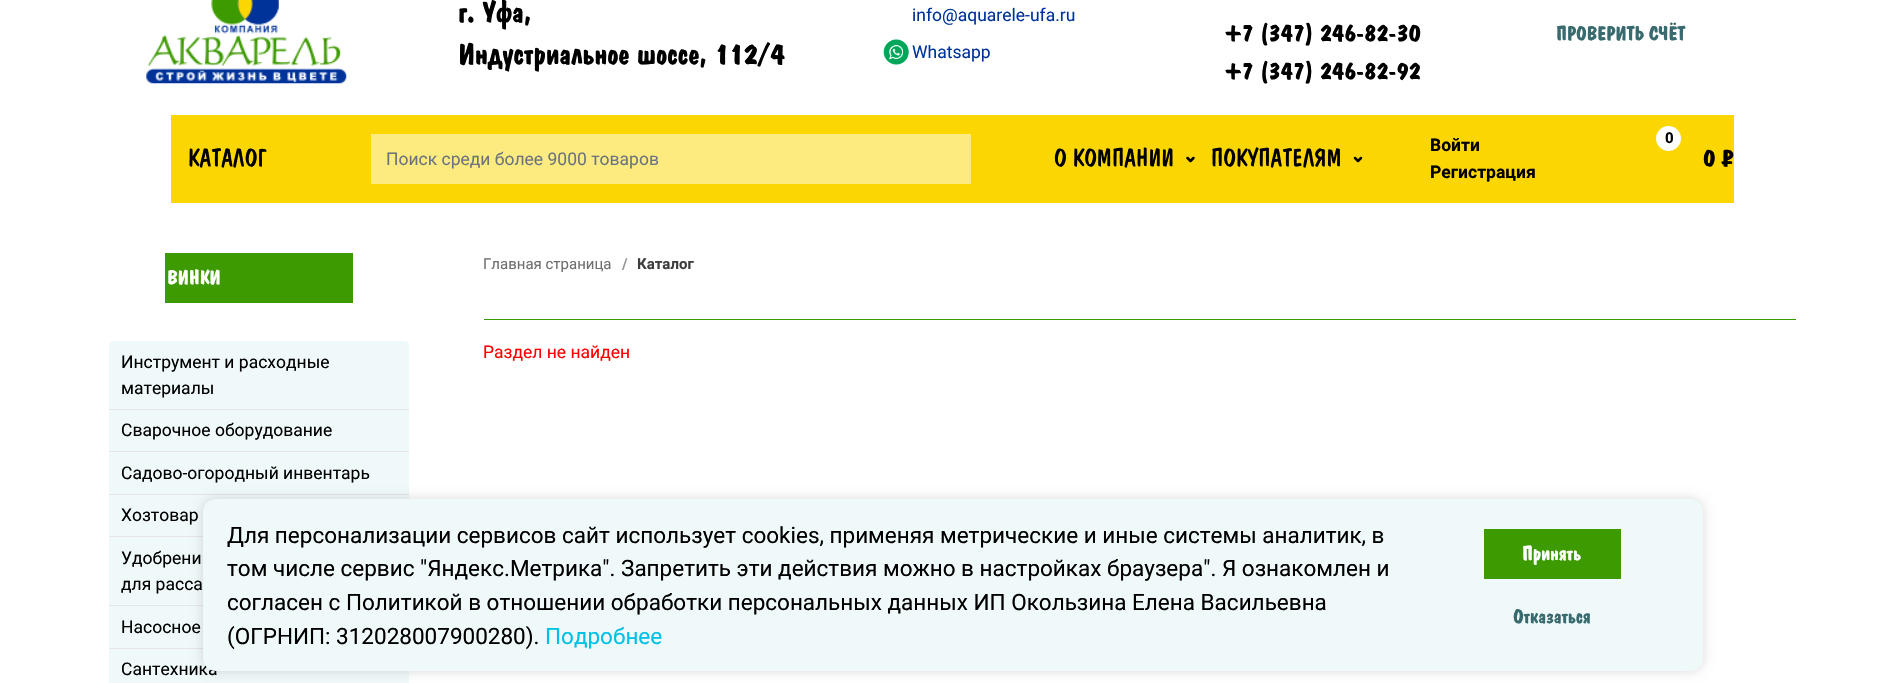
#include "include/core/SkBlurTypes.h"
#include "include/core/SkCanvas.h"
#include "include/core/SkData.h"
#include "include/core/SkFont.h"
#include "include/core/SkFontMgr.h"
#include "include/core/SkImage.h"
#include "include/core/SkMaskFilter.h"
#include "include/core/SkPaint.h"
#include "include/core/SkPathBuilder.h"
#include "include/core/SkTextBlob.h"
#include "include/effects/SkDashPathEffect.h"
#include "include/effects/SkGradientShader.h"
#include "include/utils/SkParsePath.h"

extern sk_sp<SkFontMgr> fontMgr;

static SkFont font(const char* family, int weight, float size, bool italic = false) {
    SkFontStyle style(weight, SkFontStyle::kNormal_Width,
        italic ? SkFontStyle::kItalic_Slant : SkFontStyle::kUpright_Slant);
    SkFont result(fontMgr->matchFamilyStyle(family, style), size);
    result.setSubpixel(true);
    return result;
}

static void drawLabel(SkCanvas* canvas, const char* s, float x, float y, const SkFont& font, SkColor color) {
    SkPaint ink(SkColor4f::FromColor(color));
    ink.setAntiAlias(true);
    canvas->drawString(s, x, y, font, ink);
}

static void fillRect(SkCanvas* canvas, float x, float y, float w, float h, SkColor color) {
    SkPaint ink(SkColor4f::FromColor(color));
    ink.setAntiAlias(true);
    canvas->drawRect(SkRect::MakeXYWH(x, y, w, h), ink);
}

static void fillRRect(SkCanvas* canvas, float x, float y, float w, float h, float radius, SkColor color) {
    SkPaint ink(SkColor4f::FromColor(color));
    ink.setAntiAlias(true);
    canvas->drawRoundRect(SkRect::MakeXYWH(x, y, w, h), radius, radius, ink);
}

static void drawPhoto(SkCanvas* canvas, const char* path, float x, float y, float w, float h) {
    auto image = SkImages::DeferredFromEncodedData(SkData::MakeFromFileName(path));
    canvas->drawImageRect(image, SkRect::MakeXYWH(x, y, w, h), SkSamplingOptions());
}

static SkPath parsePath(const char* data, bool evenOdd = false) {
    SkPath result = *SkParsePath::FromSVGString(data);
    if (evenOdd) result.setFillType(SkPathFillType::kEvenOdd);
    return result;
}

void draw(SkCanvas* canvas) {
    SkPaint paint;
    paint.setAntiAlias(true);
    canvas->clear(0xFFFFFFFF);
    drawPhoto(canvas, "assets/img1.png", 146, 0, 201, 84);
    SkFont font1 = font("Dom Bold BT", 700, 30);
    drawLabel(canvas, "г. Уфа,", 458, 22, font1, 0xFF000000);
    drawLabel(canvas, "Индустриальное шоссе, 112/4", 458, 64, font1, 0xFF000000);
    SkFont font2 = font("Roboto", 400, 17.5f);
    drawLabel(canvas, "info@aquarele-ufa.ru", 912, 21, font2, 0xFF003399);
    drawPhoto(canvas, "assets/img2.png", 883, 39, 26, 26);
    drawLabel(canvas, "Whatsapp", 912, 58, font2, 0xFF003399);
    SkFont font3 = font("Dom Bold BT", 700, 25);
    drawLabel(canvas, "+7 (347) 246-82-30", 1225, 41, font3, 0xFF000000);
    drawLabel(canvas, "+7 (347) 246-82-92", 1225, 79, font3, 0xFF000000);
    SkFont font4 = font("Dom Bold BT", 700, 20);
    drawLabel(canvas, "ПРОВЕРИТЬ СЧЁТ", 1556, 40, font4, 0xFF386A6E);
    fillRect(canvas, 171, 115, 1563, 88, 0xFFFCD600);
    SkFont font5 = font("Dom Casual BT", 400, 25);
    drawLabel(canvas, "КАТАЛОГ", 188, 166, font5, 0xFF000000);
    fillRect(canvas, 371, 134, 600, 50, 0xFFFEEB80);
    drawLabel(canvas, "Поиск среди более 9000 товаров", 386, 165, font2, 0xFF6C757D);
    drawLabel(canvas, "О КОМПАНИИ", 1054, 166, font5, 0xFF000000);
    paint.setStroke(true);
    paint.setStrokeWidth(2.5f);
    paint.setStrokeCap(SkPaint::kRound_Cap);
    paint.setStrokeJoin(SkPaint::kRound_Join);
    paint.setColor(0xFF000000);
    canvas->drawPath(parsePath("M1187.5 158L1190.5 161L1193.5 158"), paint);
    drawLabel(canvas, "ПОКУПАТЕЛЯМ", 1211, 166, font5, 0xFF000000);
    canvas->drawPath(parsePath("M1355 158L1358 161L1361 158"), paint);
    SkFont font6 = font("Roboto", 700, 17.5f);
    drawLabel(canvas, "Войти", 1430, 151, font6, 0xFF000000);
    drawLabel(canvas, "Регистрация", 1430, 178, font6, 0xFF000000);
    paint.setStroke(false);
    paint.setColor(0xFFFFFFFF);
    canvas->drawCircle(1668.5f, 138.5f, 12.5f, paint);
    SkFont font7 = font("Roboto", 700, 15);
    drawLabel(canvas, "0", 1665, 143, font7, 0xFF000000);
    drawLabel(canvas, "0 ₽", 1703, 166, font3, 0xFF000000);
    fillRect(canvas, 165, 253, 188, 50, 0xFF3D9A00);
    drawLabel(canvas, "ВИНКИ", 167, 284, font4, 0xFFFFFFFF);
    fillRRect(canvas, 109, 341, 300, 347, 5, 0xFFF0F9FA);
    fillRect(canvas, 109, 409, 300, 1, 0xFFE5E5E5);
    drawLabel(canvas, "Инструмент и расходные", 121, 368, font2, 0xFF000000);
    drawLabel(canvas, "материалы", 121, 394, font2, 0xFF000000);
    fillRect(canvas, 109, 451, 300, 1, 0xFFE5E5E5);
    drawLabel(canvas, "Сварочное оборудование", 121, 436, font2, 0xFF000000);
    fillRect(canvas, 109, 494, 300, 1, 0xFFE5E5E5);
    drawLabel(canvas, "Садово-огородный инвентарь", 121, 479, font2, 0xFF000000);
    fillRect(canvas, 109, 536, 94, 1, 0xFFE5E5E5);
    drawLabel(canvas, "Хозтовар", 121, 521, font2, 0xFF000000);
    fillRect(canvas, 109, 605, 94, 1, 0xFFE5E5E5);
    drawLabel(canvas, "Удобрени", 121, 564, font2, 0xFF000000);
    drawLabel(canvas, "для расса", 121, 590, font2, 0xFF000000);
    fillRect(canvas, 109, 648, 94, 1, 0xFFE5E5E5);
    drawLabel(canvas, "Насосное", 121, 633, font2, 0xFF000000);
    drawLabel(canvas, "Сантехника", 121, 675, font2, 0xFF000000);
    SkFont font8 = font("Roboto", 400, 15);
    drawLabel(canvas, "Главная страница", 483, 269, font8, 0xFF6F6F6F);
    drawLabel(canvas, "/", 622, 269, font7, 0xFF999999);
    drawLabel(canvas, "Каталог", 637, 269, font7, 0xFF3E3E3E);
    fillRect(canvas, 484, 319, 1312, 1, 0xFF3D9A00);
    drawLabel(canvas, "Раздел не найден", 483, 358, font2, 0xFFFF0000);
    paint.setColor(0x26000000);
    paint.setMaskFilter(SkMaskFilter::MakeBlur(kNormal_SkBlurStyle, 6));
    canvas->drawRoundRect(SkRect::MakeXYWH(203, 499, 1500, 172), 13, 13, paint);
    paint.setMaskFilter(nullptr);
    fillRRect(canvas, 203, 499, 1500, 172, 13, 0xFFF0F9FA);
    SkFont font9 = font("Roboto", 400, 22.5f);
    drawLabel(canvas, "Для персонализации сервисов сайт использует cookies, применяя метрические и иные системы аналитик, в", 227, 543, font9, 0xFF000000);
    drawLabel(canvas, "том числе сервис \"Яндекс.Метрика\". Запретить эти действия можно в настройках браузера\". Я ознакомлен и", 227, 576, font9, 0xFF000000);
    drawLabel(canvas, "согласен с Политикой в отношении обработки персональных данных ИП Окользина Елена Васильевна", 227, 610, font9, 0xFF000000);
    drawLabel(canvas, "(ОГРНИП: 312028007900280).", 227, 644, font9, 0xFF000000);
    drawLabel(canvas, "Подробнее", 545, 644, font9, 0xFF00C0E6);
    fillRect(canvas, 1484, 529, 137, 50, 0xFF3D9A00);
    drawLabel(canvas, "Принять", 1522, 560, font4, 0xFFFFFFFF);
    drawLabel(canvas, "Отказаться", 1513, 623, font4, 0xFF386A6E);
}
